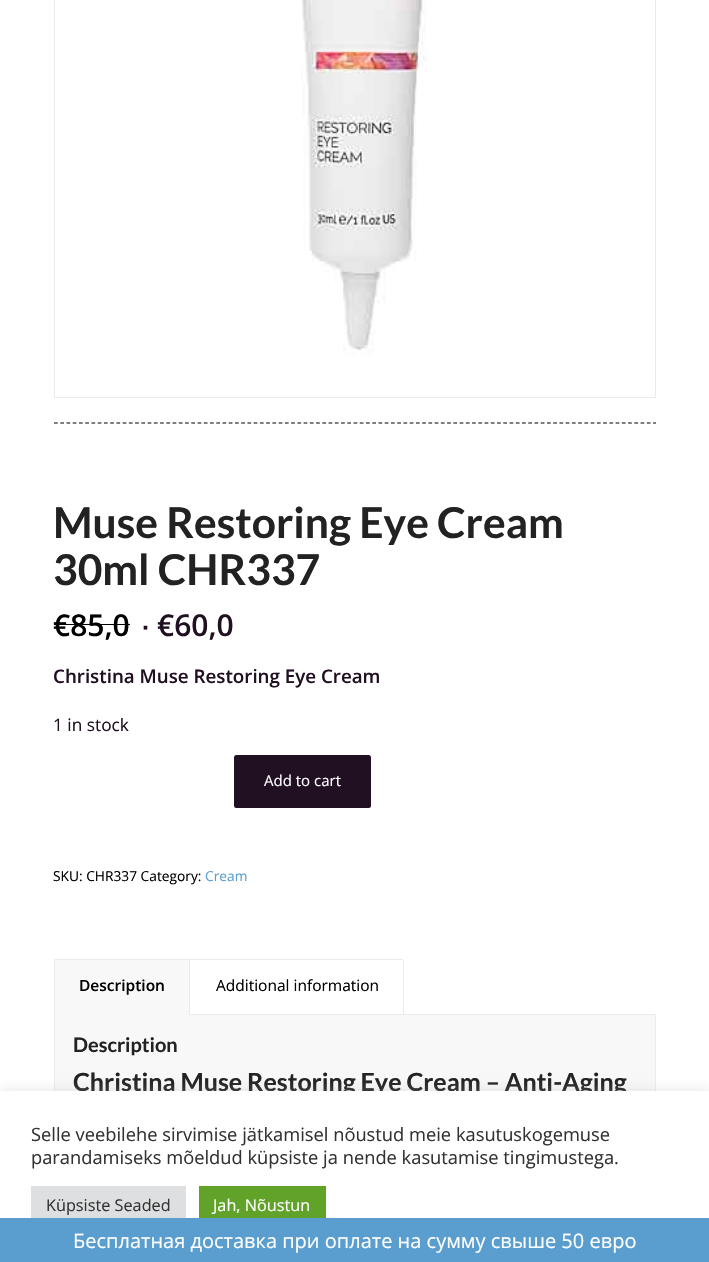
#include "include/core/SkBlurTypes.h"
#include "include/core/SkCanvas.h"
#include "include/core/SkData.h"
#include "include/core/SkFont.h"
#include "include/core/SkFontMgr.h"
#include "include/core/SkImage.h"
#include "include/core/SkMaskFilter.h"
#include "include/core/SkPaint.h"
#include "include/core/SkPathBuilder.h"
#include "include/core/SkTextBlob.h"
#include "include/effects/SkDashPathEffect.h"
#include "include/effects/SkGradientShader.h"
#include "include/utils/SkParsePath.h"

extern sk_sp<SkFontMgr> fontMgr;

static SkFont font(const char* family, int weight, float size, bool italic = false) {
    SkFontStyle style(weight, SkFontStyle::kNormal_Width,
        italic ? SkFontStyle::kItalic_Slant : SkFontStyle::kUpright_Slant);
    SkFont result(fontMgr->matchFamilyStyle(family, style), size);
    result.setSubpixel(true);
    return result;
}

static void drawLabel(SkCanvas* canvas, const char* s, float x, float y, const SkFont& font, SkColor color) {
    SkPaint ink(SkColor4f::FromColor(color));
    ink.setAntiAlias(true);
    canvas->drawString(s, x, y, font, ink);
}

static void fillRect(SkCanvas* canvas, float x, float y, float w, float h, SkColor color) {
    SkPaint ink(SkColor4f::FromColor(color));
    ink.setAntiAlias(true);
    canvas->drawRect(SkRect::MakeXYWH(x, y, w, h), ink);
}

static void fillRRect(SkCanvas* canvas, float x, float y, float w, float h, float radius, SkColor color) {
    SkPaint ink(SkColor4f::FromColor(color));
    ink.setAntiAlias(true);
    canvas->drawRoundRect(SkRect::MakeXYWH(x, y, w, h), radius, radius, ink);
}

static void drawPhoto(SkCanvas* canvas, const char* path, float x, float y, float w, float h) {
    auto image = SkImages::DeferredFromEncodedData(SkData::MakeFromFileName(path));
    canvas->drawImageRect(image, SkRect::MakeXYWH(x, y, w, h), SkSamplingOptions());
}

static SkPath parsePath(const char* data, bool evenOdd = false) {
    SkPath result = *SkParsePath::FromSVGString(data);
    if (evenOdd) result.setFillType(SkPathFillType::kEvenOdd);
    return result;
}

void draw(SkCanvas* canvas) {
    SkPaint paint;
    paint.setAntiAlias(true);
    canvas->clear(0xFFFFFFFF);
    paint.setStroke(true);
    paint.setStrokeWidth(1);
    paint.setColor(0xFFEBEBEB);
    canvas->drawRect(SkRect::MakeXYWH(54.5f, -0.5f, 601, 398), paint);
    drawPhoto(canvas, "assets/img1.png", 301, 0, 126, 355);
    paint.setStrokeWidth(1.2f);
    paint.setColor(0xFF000000);
    paint.setPathEffect(SkDashPathEffect::Make({{3.75f, 2.49f}}, 0));
    canvas->drawPath(parsePath("M54 423H656"), paint);
    paint.setPathEffect(nullptr);
    SkFont font1 = font("Lato", 700, 42.5f);
    drawLabel(canvas, "Muse Restoring Eye Cream", 53, 538, font1, 0xFF222222);
    drawLabel(canvas, "30ml CHR337", 53, 585, font1, 0xFF222222);
    SkFont font2 = font("Open Sans", 600, 30);
    drawLabel(canvas, "€85,0", 53, 636, font2, 0xFF000000);
    fillRect(canvas, 54, 624, 76, 1, 0xFF000000);
    SkFont font3 = font("Liberation Sans", 700, 25);
    drawLabel(canvas, "∙", 142, 636, font3, 0xFF211021);
    drawLabel(canvas, "€60,0", 157, 636, font2, 0xFF211021);
    SkFont font4 = font("Open Sans", 600, 18.75f);
    drawLabel(canvas, "Christina Muse Restoring Eye Cream", 53, 683, font4, 0xFF211021);
    SkFont font5 = font("Open Sans", 400, 17.25f);
    drawLabel(canvas, "1 in stock", 53, 731, font5, 0xFF211021);
    fillRRect(canvas, 234, 755, 137, 53, 2.5f, 0xFF211021);
    SkFont font6 = font("Open Sans", 400, 15);
    drawLabel(canvas, "Add to cart", 264, 786, font6, 0xFFFFFFFF);
    SkFont font7 = font("Open Sans", 400, 13.75f);
    drawLabel(canvas, "SKU: CHR337 Category:", 53, 881, font7, 0xFF000000);
    drawLabel(canvas, "Cream", 205, 881, font7, 0xFF599ECF);
    fillRect(canvas, 55, 1015, 600, 76, 0xFFF8F8F8);
    paint.setStrokeWidth(1);
    paint.setColor(0xFFEBEBEB);
    canvas->drawRect(SkRect::MakeXYWH(54.5f, 1014.5f, 601, 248), paint);
    fillRect(canvas, 54, 959, 135, 56, 0xFFF8F8F8);
    fillRect(canvas, 189, 959, 214, 1, 0xFFEBEBEB);
    fillRect(canvas, 55, 959, 135, 1, 0xFFEBEBEB);
    fillRect(canvas, 189, 959, 1, 56, 0xFFEBEBEB);
    fillRect(canvas, 54, 960, 1, 55, 0xFFEBEBEB);
    SkFont font8 = font("Open Sans", 600, 15.5f);
    drawLabel(canvas, "Description", 79, 991, font8, 0xFF000000);
    fillRect(canvas, 403, 960, 1, 55, 0xFFEBEBEB);
    SkFont font9 = font("Open Sans", 400, 15.5f);
    drawLabel(canvas, "Additional information", 216, 991, font9, 0xFF000000);
    SkFont font10 = font("Lato", 700, 20);
    drawLabel(canvas, "Description", 73, 1052, font10, 0xFF222222);
    SkFont font11 = font("Lato", 700, 25);
    drawLabel(canvas, "Christina Muse Restoring Eye Cream – Anti-Aging", 73, 1091, font11, 0xFF222222);
    paint.setStroke(false);
    paint.setColor(0x4DACABAB);
    paint.setMaskFilter(SkMaskFilter::MakeBlur(kNormal_SkBlurStyle, 6));
    canvas->drawRect(SkRect::MakeXYWH(0, 1090, 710, 171), paint);
    paint.setMaskFilter(nullptr);
    fillRect(canvas, 0, 1091, 709, 127, 0xFFFFFFFF);
    SkFont font12 = font("Open Sans", 400, 18.3f);
    drawLabel(canvas, "Selle veebilehe sirvimise jätkamisel nõustud meie kasutuskogemuse", 31, 1141, font12, 0xFF333333);
    drawLabel(canvas, "parandamiseks mõeldud küpsiste ja nende kasutamise tingimustega.", 31, 1164, font12, 0xFF333333);
    fillRect(canvas, 31, 1186, 155, 32, 0xFFDEDFE0);
    SkFont font13 = font("Open Sans", 400, 16.25f);
    drawLabel(canvas, "Küpsiste Seaded", 46, 1211, font13, 0xFF333333);
    fillRect(canvas, 199, 1186, 127, 32, 0xFF61A229);
    drawLabel(canvas, "Jah, Nõustun", 213, 1211, font13, 0xFFFFFFFF);
    fillRect(canvas, 0, 1218, 709, 44, 0xFF599ECF);
    SkFont font14 = font("Open Sans", 400, 20);
    drawLabel(canvas, "Бесплатная доставка при оплате на сумму свыше 50 евро", 73, 1248, font14, 0xFFFFFFFF);
}
